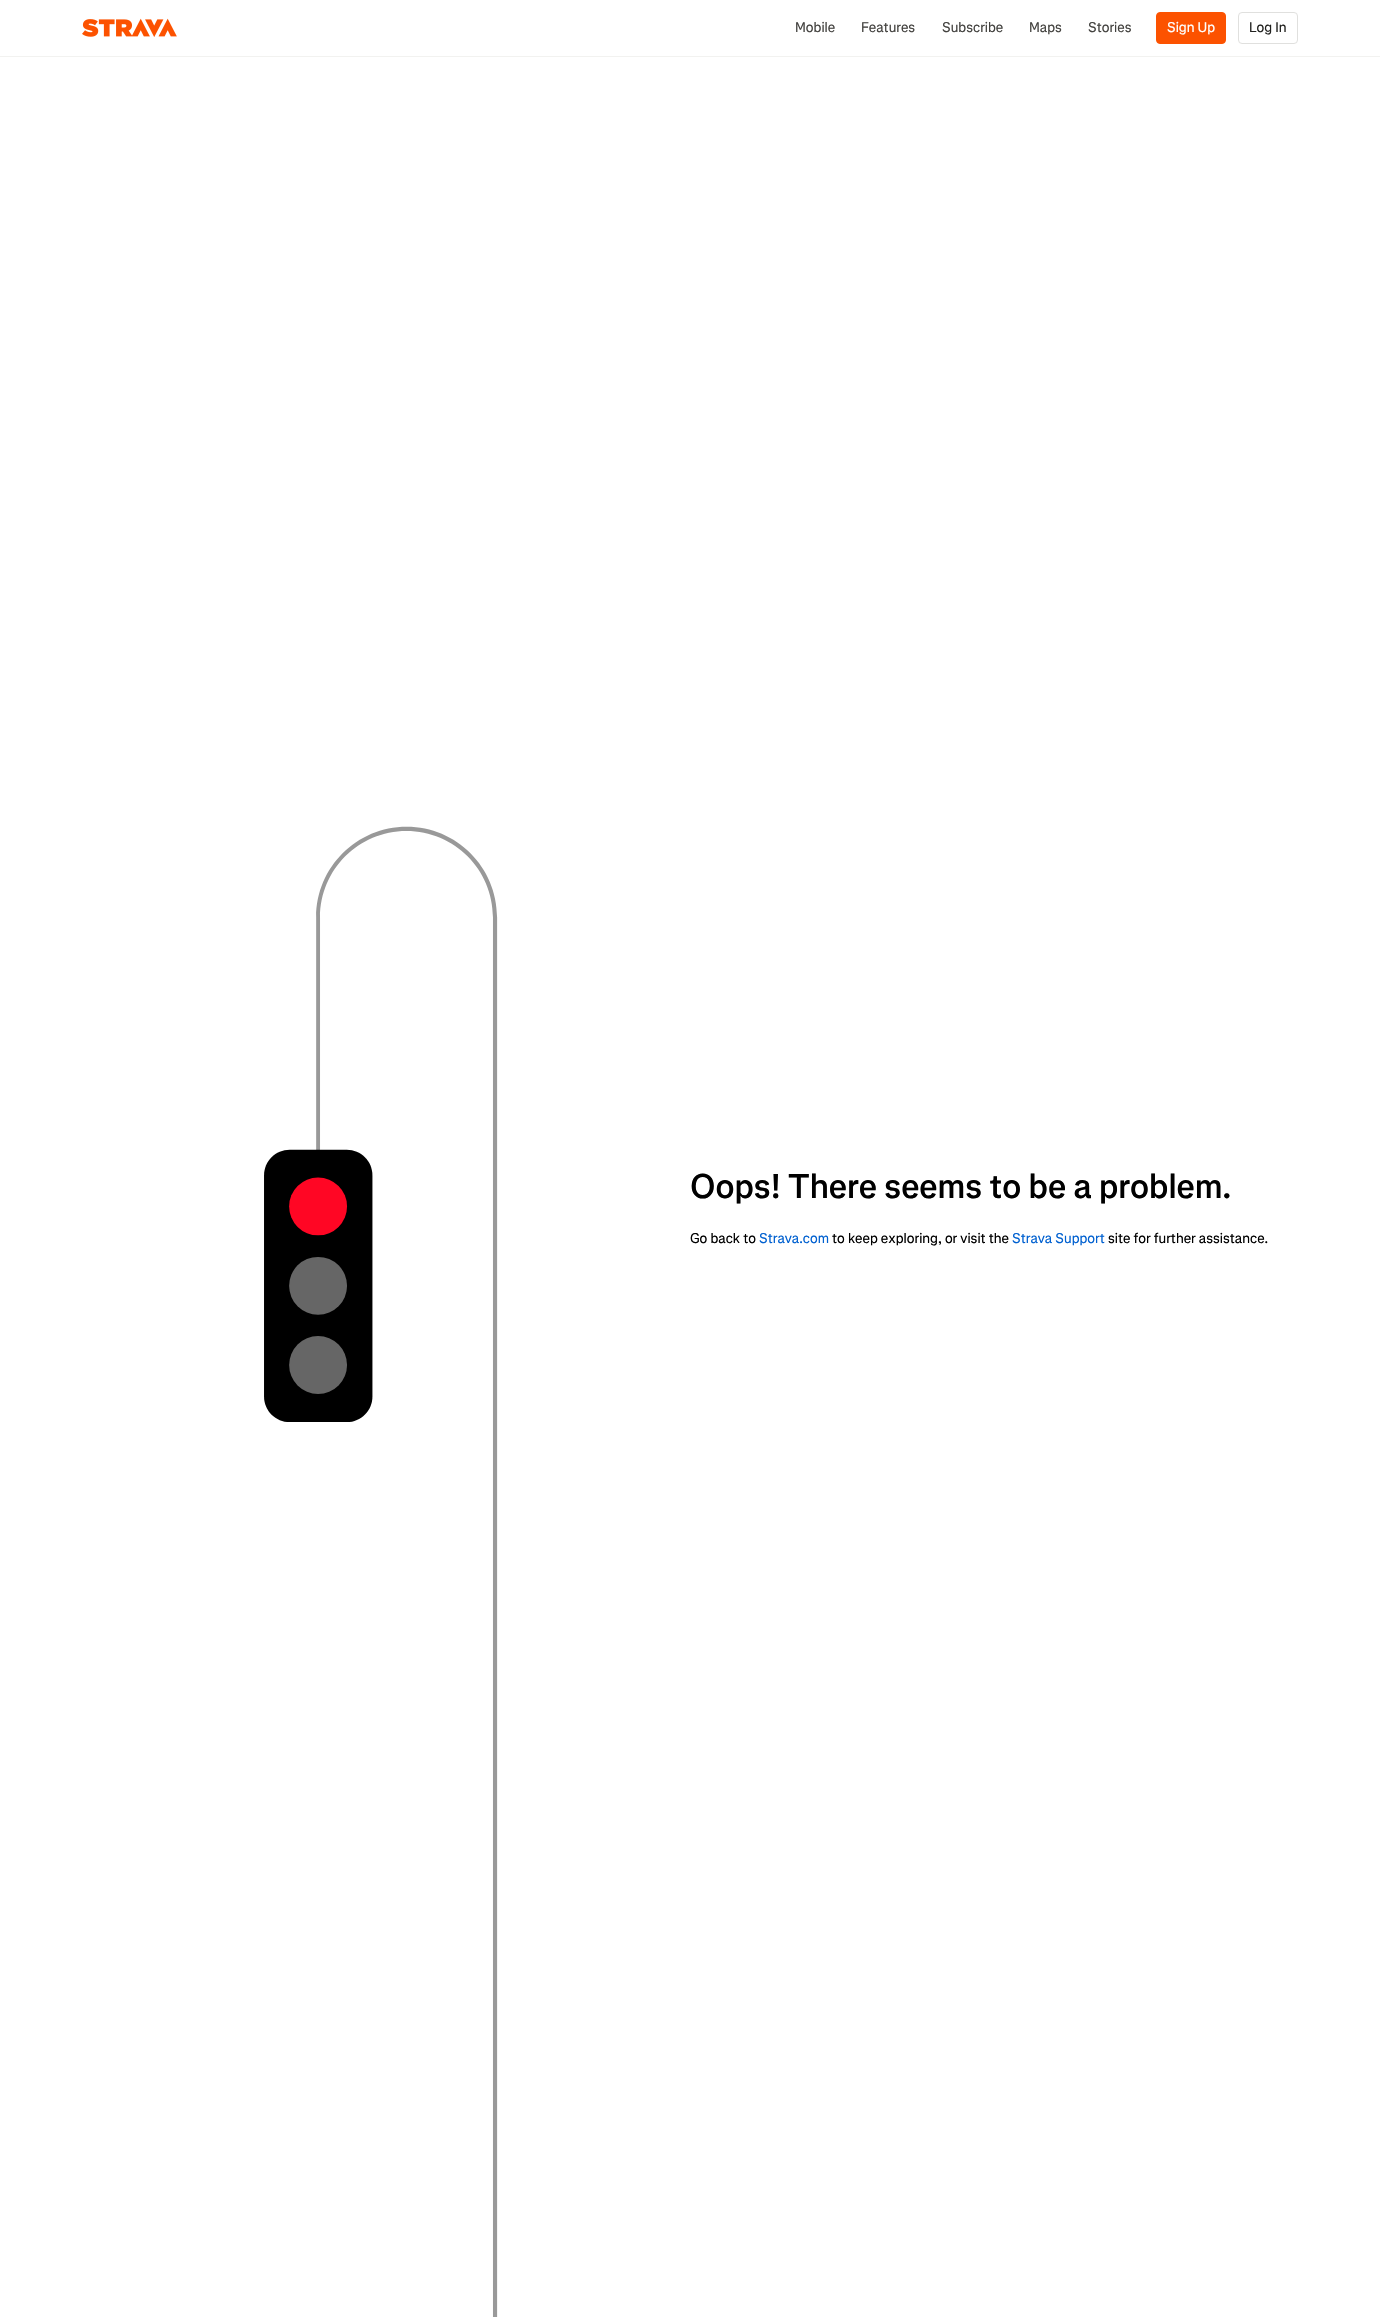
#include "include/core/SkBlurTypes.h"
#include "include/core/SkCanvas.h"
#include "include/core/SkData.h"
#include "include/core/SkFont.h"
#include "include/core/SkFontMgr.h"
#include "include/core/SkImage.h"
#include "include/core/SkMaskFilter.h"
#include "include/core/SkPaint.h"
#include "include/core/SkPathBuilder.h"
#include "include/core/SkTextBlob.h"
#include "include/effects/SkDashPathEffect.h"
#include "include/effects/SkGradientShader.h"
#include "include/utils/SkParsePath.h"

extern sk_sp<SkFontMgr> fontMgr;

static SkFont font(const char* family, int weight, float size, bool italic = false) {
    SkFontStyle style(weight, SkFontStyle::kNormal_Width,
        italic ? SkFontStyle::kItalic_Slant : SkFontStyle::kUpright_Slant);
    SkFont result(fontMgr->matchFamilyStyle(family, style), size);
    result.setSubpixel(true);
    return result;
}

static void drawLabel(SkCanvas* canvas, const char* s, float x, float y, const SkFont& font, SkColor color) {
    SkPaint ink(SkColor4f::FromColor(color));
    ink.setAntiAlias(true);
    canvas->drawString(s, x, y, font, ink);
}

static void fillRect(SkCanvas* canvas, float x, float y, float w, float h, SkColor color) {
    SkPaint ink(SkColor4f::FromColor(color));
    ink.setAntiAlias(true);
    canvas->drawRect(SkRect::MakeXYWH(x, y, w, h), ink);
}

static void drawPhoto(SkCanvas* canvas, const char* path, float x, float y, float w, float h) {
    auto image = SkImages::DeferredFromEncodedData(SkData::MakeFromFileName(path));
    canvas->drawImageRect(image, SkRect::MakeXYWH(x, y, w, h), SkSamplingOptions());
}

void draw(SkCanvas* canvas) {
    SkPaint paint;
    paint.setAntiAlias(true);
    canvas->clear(0xFFFFFFFF);
    fillRect(canvas, 0, 56, 1380, 1, 0xFFF2F2F0);
    drawPhoto(canvas, "assets/img1.png", 82, 18, 95, 19);
    SkFont font1 = font("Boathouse", 400, 14);
    drawLabel(canvas, "Mobile", 795, 32, font1, 0xFF43423F);
    drawLabel(canvas, "Features", 861, 32, font1, 0xFF43423F);
    drawLabel(canvas, "Subscribe", 942, 32, font1, 0xFF43423F);
    drawLabel(canvas, "Maps", 1029, 32, font1, 0xFF43423F);
    drawLabel(canvas, "Stories", 1088, 32, font1, 0xFF43423F);
    paint.setColor(0xFFFC5200);
    canvas->drawRoundRect(SkRect::MakeXYWH(1156.5f, 12.5f, 69, 31), 3.5f, 3.5f, paint);
    paint.setStroke(true);
    paint.setStrokeWidth(1);
    canvas->drawRoundRect(SkRect::MakeXYWH(1156.5f, 12.5f, 69, 31), 3.5f, 3.5f, paint);
    drawLabel(canvas, "Sign Up", 1167, 32, font1, 0xFFFFFFFF);
    paint.setColor(0xFFE0E0DE);
    canvas->drawRoundRect(SkRect::MakeXYWH(1238.5f, 12.5f, 59, 31), 3.5f, 3.5f, paint);
    drawLabel(canvas, "Log In", 1249, 32, font1, 0xFF21211F);
    drawPhoto(canvas, "assets/img2.png", 264, 826, 234, 1491);
    SkFont font2 = font("Boathouse", 500, 34);
    drawLabel(canvas, "Oops! There seems to be a problem.", 690, 1198, font2, 0xFF000000);
    drawLabel(canvas, "Go back to", 690, 1243, font1, 0xFF000000);
    drawLabel(canvas, "Strava.com", 759, 1243, font1, 0xFF0060D0);
    drawLabel(canvas, "to keep exploring, or visit the", 832, 1243, font1, 0xFF000000);
    drawLabel(canvas, "Strava Support", 1012, 1243, font1, 0xFF0060D0);
    drawLabel(canvas, "site for further assistance.", 1108, 1243, font1, 0xFF000000);
}
